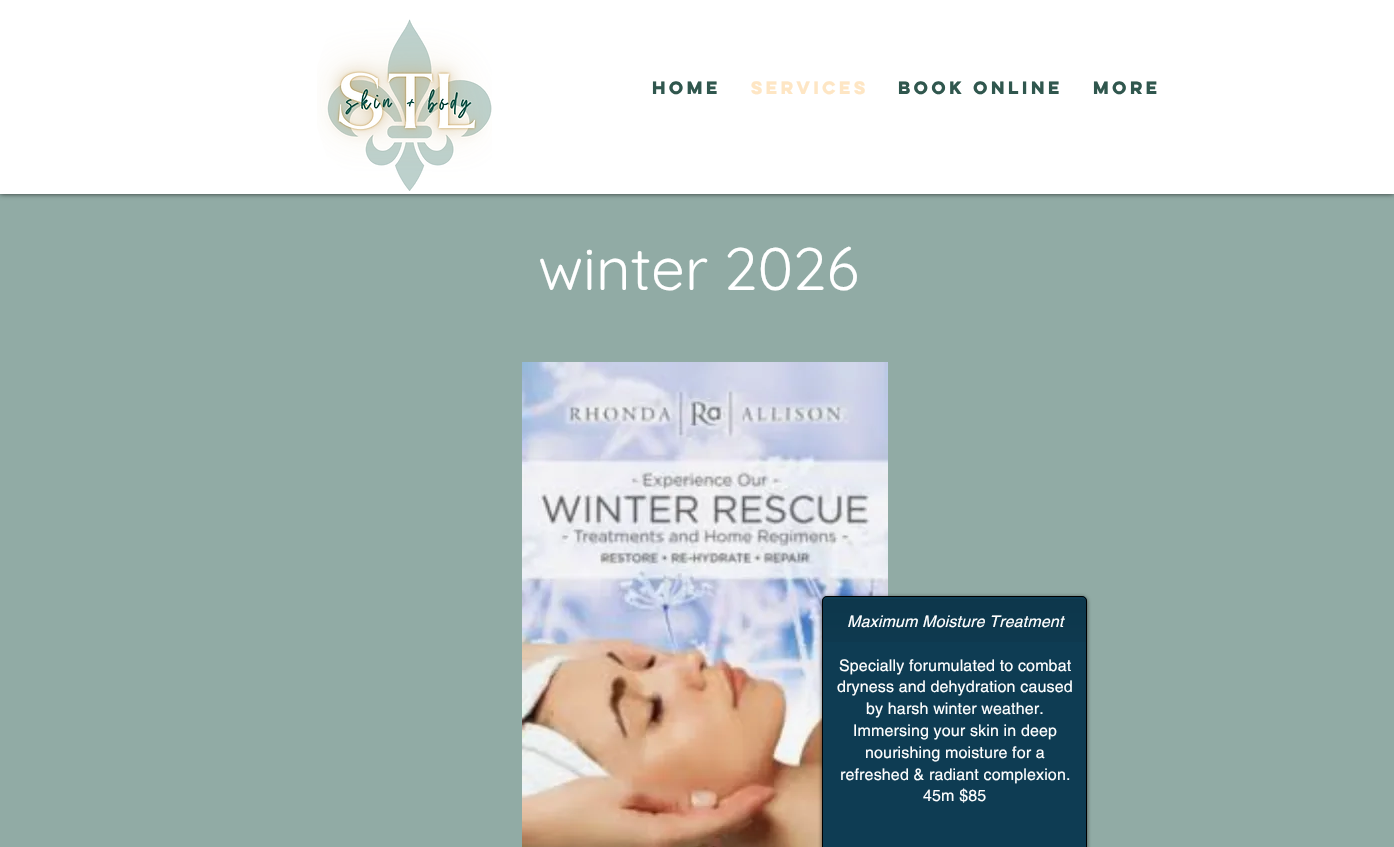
#include "include/core/SkBlurTypes.h"
#include "include/core/SkCanvas.h"
#include "include/core/SkData.h"
#include "include/core/SkFont.h"
#include "include/core/SkFontMgr.h"
#include "include/core/SkImage.h"
#include "include/core/SkMaskFilter.h"
#include "include/core/SkPaint.h"
#include "include/core/SkPathBuilder.h"
#include "include/core/SkTextBlob.h"
#include "include/effects/SkDashPathEffect.h"
#include "include/effects/SkGradientShader.h"
#include "include/utils/SkParsePath.h"

extern sk_sp<SkFontMgr> fontMgr;

static SkFont font(const char* family, int weight, float size, bool italic = false) {
    SkFontStyle style(weight, SkFontStyle::kNormal_Width,
        italic ? SkFontStyle::kItalic_Slant : SkFontStyle::kUpright_Slant);
    SkFont result(fontMgr->matchFamilyStyle(family, style), size);
    result.setSubpixel(true);
    return result;
}

static void drawLabel(SkCanvas* canvas, const char* s, float x, float y, const SkFont& font, SkColor color) {
    SkPaint ink(SkColor4f::FromColor(color));
    ink.setAntiAlias(true);
    canvas->drawString(s, x, y, font, ink);
}

static void drawTracked(SkCanvas* canvas, const char* s, float x, float y, const SkFont& font, const SkPaint& ink, float letter, float word) {
    std::vector<SkGlyphID> glyphs(font.countText(s, strlen(s), SkTextEncoding::kUTF8));
    std::vector<float> xs(glyphs.size());
    font.textToGlyphs(s, strlen(s), SkTextEncoding::kUTF8, glyphs);
    font.getXPos(glyphs, xs, x);
    float extra = 0;
    for (size_t i = 0; i < glyphs.size(); i++) {
        xs[i] += extra;
        extra += letter + word * (glyphs[i] == font.unicharToGlyph(' '));
    }
    canvas->drawTextBlob(SkTextBlob::MakeFromPosHGlyphs(glyphs, xs, y, font), 0, 0, ink);
}

static void fillRect(SkCanvas* canvas, float x, float y, float w, float h, SkColor color) {
    SkPaint ink(SkColor4f::FromColor(color));
    ink.setAntiAlias(true);
    canvas->drawRect(SkRect::MakeXYWH(x, y, w, h), ink);
}

static void fillRRect(SkCanvas* canvas, float x, float y, float w, float h, float radius, SkColor color) {
    SkPaint ink(SkColor4f::FromColor(color));
    ink.setAntiAlias(true);
    canvas->drawRoundRect(SkRect::MakeXYWH(x, y, w, h), radius, radius, ink);
}

static void drawPhoto(SkCanvas* canvas, const char* path, float x, float y, float w, float h) {
    auto image = SkImages::DeferredFromEncodedData(SkData::MakeFromFileName(path));
    canvas->drawImageRect(image, SkRect::MakeXYWH(x, y, w, h), SkSamplingOptions());
}

void draw(SkCanvas* canvas) {
    SkPaint paint;
    paint.setAntiAlias(true);
    canvas->clear(0xFF91ABA5);
    paint.setColor(0xB3000000);
    paint.setMaskFilter(SkMaskFilter::MakeBlur(kNormal_SkBlurStyle, 2.5f));
    canvas->drawRect(SkRect::MakeXYWH(0, 0, 1394, 194), paint);
    paint.setMaskFilter(nullptr);
    fillRect(canvas, 0, 0, 1394, 194, 0xFFFFFFFF);
    drawPhoto(canvas, "assets/img1.png", 317, 19, 175, 172);
    SkFont font1 = font("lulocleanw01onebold", 700, 16);
    drawLabel(canvas, "HOME", 652, 94, font1, 0xFF30574E);
    drawLabel(canvas, "SERVICES", 751, 94, font1, 0xFFFEE6C4);
    drawLabel(canvas, "BOOK ONLINE", 898, 94, font1, 0xFF30574E);
    drawLabel(canvas, "More", 1093, 94, font1, 0xFF30574E);
    SkFont font2 = font("Quicksand", 400, 60);
    drawLabel(canvas, "winter 2026", 538, 290, font2, 0xFFFFFFFF);
    drawPhoto(canvas, "assets/img2.png", 522, 362, 366, 485);
    paint.setColor(0x99000000);
    paint.setMaskFilter(SkMaskFilter::MakeBlur(kNormal_SkBlurStyle, 2));
    canvas->drawRoundRect(SkRect::MakeXYWH(822, 597, 265, 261), 5, 5, paint);
    paint.setMaskFilter(nullptr);
    fillRRect(canvas, 822, 596, 265, 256, 5, 0xFF0E3C53);
    drawPhoto(canvas, "assets/img3.png", 822, 599, 265, 43);
    paint.setStroke(true);
    paint.setStrokeWidth(1);
    paint.setColor(0xFF000000);
    canvas->drawRoundRect(SkRect::MakeXYWH(822.5f, 596.5f, 264, 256), 4.5f, 4.5f, paint);
    SkFont font3 = font("helvetica", 400, 16, true);
    paint.setStroke(false);
    paint.setColor(0xFFFFFFFF);
    drawTracked(canvas, "Maximum Moisture Treatment", 847, 627, font3, paint, 0.15f, 0);
    SkFont font4 = font("helvetica", 400, 16);
    drawTracked(canvas, "Specially forumulated to combat", 839, 671, font4, paint, 0.15f, 0);
    drawTracked(canvas, "dryness and dehydration caused", 837, 692, font4, paint, 0.15f, 0);
    drawTracked(canvas, "by harsh winter weather.", 866, 714, font4, paint, 0.15f, 0);
    drawTracked(canvas, "Immersing your skin in deep", 853, 736, font4, paint, 0.15f, 0);
    drawTracked(canvas, "nourishing moisture for a", 865, 758, font4, paint, 0.15f, 0);
    drawTracked(canvas, "refreshed & radiant complexion.", 840, 780, font4, paint, 0.15f, 0);
    drawTracked(canvas, "45m $85", 923, 801, font4, paint, 0.15f, 0);
}
